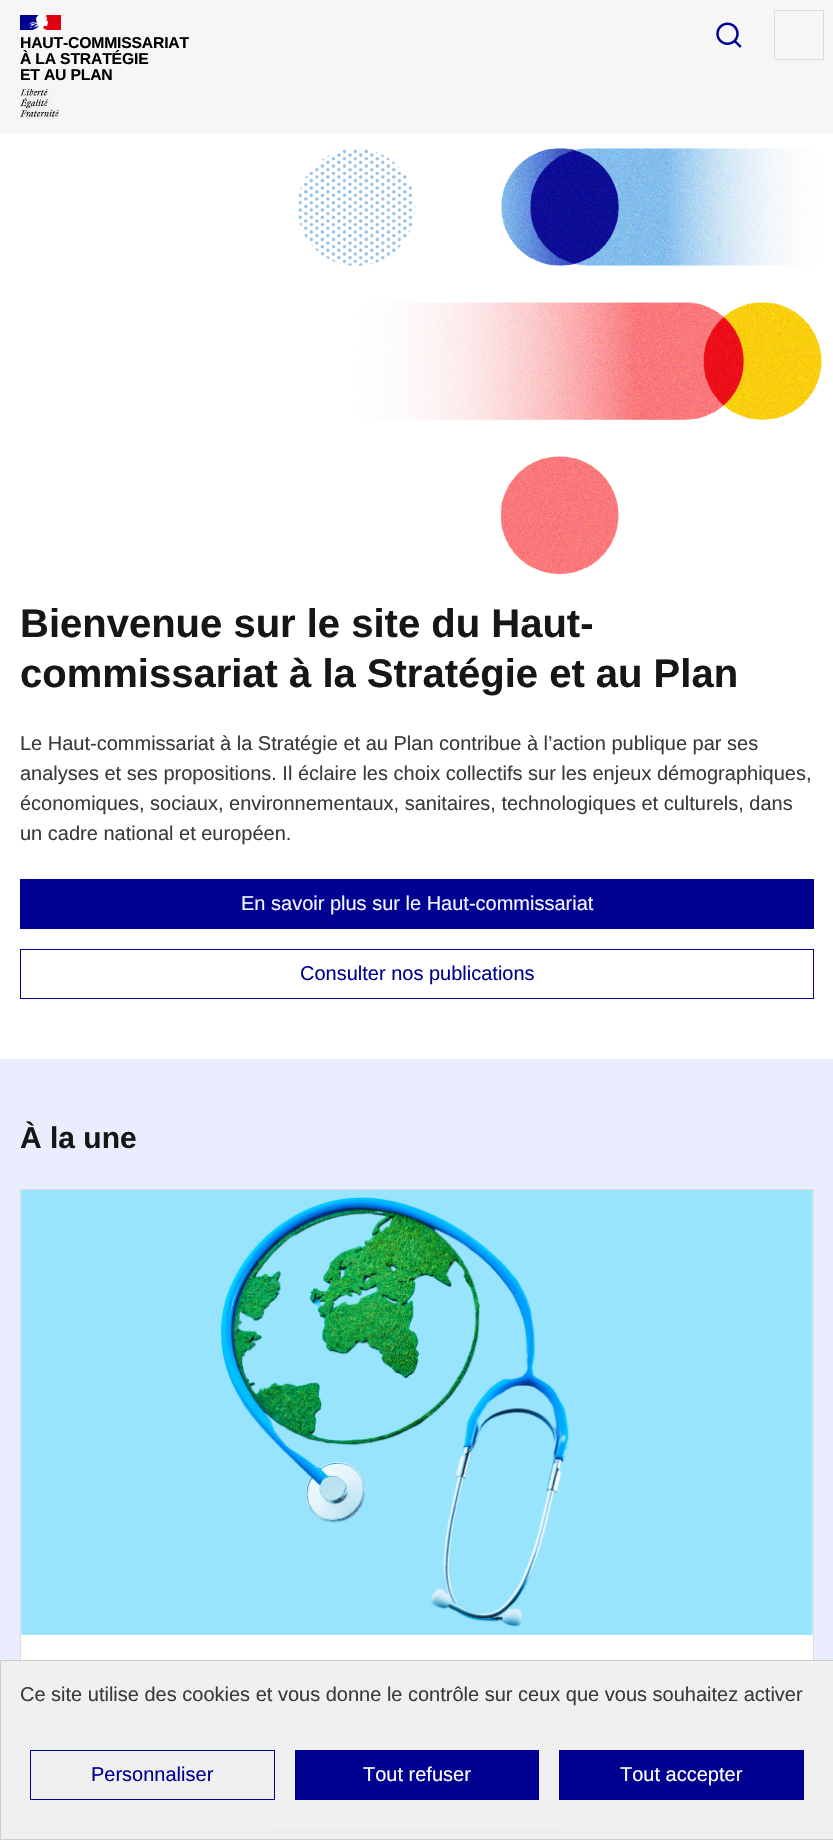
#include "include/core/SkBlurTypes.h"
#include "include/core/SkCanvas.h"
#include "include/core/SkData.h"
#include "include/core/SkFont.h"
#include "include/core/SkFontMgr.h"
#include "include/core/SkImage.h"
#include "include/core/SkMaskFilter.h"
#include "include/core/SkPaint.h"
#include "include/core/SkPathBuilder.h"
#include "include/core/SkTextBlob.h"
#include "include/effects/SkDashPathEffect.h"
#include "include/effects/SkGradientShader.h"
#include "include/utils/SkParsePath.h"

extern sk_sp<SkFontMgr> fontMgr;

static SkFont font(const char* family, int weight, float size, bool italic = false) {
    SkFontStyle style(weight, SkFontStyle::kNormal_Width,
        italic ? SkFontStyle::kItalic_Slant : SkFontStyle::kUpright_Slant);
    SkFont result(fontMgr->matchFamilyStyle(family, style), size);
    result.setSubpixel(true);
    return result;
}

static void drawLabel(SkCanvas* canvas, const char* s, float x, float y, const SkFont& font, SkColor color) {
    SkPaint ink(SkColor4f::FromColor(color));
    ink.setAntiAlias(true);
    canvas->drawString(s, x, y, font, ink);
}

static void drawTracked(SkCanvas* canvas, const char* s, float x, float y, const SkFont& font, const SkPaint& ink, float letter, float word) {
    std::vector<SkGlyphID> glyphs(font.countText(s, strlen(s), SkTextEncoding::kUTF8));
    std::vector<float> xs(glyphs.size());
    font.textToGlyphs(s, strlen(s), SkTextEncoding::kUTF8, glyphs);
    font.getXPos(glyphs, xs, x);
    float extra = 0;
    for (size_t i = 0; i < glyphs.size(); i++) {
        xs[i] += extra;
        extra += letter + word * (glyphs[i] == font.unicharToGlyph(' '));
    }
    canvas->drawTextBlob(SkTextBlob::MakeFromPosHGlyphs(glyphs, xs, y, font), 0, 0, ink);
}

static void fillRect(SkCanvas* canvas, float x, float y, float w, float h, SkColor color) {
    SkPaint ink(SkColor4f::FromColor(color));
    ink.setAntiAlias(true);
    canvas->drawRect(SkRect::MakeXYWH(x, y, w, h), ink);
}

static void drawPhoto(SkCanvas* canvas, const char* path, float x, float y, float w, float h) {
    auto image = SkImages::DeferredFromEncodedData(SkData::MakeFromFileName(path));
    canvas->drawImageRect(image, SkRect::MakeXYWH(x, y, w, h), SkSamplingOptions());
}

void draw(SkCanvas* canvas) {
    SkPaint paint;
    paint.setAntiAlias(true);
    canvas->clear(0xFFFFFFFF);
    fillRect(canvas, 0, 0, 833, 133, 0xFFF6F6F6);
    fillRect(canvas, 20, 15, 19, 15, 0xFF000091);
    fillRect(canvas, 43, 15, 18, 15, 0xFFE1000F);
    drawPhoto(canvas, "assets/img1.png", 28, 15, 21, 15);
    SkFont font1 = font("Liberation Sans", 700, 15.75f);
    paint.setColor(0xFF000000);
    drawTracked(canvas, "HAUT-COMMISSARIAT", 20, 48, font1, paint, -0.2f, 0);
    drawTracked(canvas, "À LA STRATÉGIE", 20, 64, font1, paint, -0.2f, 0);
    drawTracked(canvas, "ET AU PLAN", 20, 80, font1, paint, -0.2f, 0);
    drawPhoto(canvas, "assets/img2.png", 20, 89, 39, 30);
    drawPhoto(canvas, "assets/img3.png", 716, 22, 26, 26);
    paint.setStroke(true);
    paint.setStrokeWidth(1);
    paint.setColor(0xFFDDDDDD);
    canvas->drawRect(SkRect::MakeXYWH(774.5f, 10.5f, 49, 49), paint);
    drawPhoto(canvas, "assets/img4.png", 298, 148, 524, 427);
    SkFont font2 = font("Liberation Sans", 700, 40);
    drawLabel(canvas, "Bienvenue sur le site du Haut-", 20, 637, font2, 0xFF161616);
    drawLabel(canvas, "commissariat à la Stratégie et au Plan", 20, 687, font2, 0xFF161616);
    SkFont font3 = font("Liberation Sans", 400, 20);
    drawLabel(canvas, "Le Haut-commissariat à la Stratégie et au Plan contribue à l’action publique par ses", 20, 750, font3, 0xFF3A3A3A);
    drawLabel(canvas, "analyses et ses propositions. Il éclaire les choix collectifs sur les enjeux démographiques,", 20, 780, font3, 0xFF3A3A3A);
    drawLabel(canvas, "économiques, sociaux, environnementaux, sanitaires, technologiques et culturels, dans", 20, 810, font3, 0xFF3A3A3A);
    drawLabel(canvas, "un cadre national et européen.", 20, 840, font3, 0xFF3A3A3A);
    fillRect(canvas, 20, 879, 794, 50, 0xFF000091);
    drawLabel(canvas, "En savoir plus sur le Haut-commissariat", 241, 910, font3, 0xFFF5F5FE);
    paint.setColor(0xFF000091);
    canvas->drawRect(SkRect::MakeXYWH(20.5f, 949.5f, 793, 49), paint);
    drawLabel(canvas, "Consulter nos publications", 300, 980, font3, 0xFF000091);
    fillRect(canvas, 0, 1059, 833, 601, 0xFFE9EDFE);
    SkFont font4 = font("Liberation Sans", 700, 30);
    drawLabel(canvas, "À la une", 20, 1148, font4, 0xFF161616);
    fillRect(canvas, 21, 1190, 792, 470, 0xFFFFFFFF);
    fillRect(canvas, 20, 1189, 794, 1, 0xFFDDDDDD);
    fillRect(canvas, 813, 1189, 1, 471, 0xFFDDDDDD);
    fillRect(canvas, 20, 1189, 1, 471, 0xFFDDDDDD);
    drawPhoto(canvas, "assets/img5.png", 21, 1190, 792, 445);
    fillRect(canvas, 1, 1668, 832, 160, 0xFFF0F0F0);
    paint.setStroke(false);
    {
        const SkColor colors[] = {0xFF898989, 0xFFF0F0F0};
        const float stops[] = {0, 1};
        SkMatrix m = SkMatrix::Translate(417, 1840).preScale(417, 13);
        paint.setShader(SkGradientShader::MakeRadial({0, 0}, 1, colors, stops, 2, SkTileMode::kClamp, 0, &m));
        paint.setAlpha(255);
    }
    canvas->drawRect(SkRect::MakeXYWH(1, 1828, 832, 4), paint);
    {
        const SkColor colors[] = {0x00F0F0F0, 0xFFF0F0F0};
        const float stops[] = {0, 0.66f};
        const SkPoint ends[] = {{417, 1818}, {417, 1840}};
        paint.setShader(SkGradientShader::MakeLinear(ends, colors, stops, 2, SkTileMode::kClamp));
        paint.setAlpha(255);
    }
    canvas->drawRect(SkRect::MakeXYWH(1, 1828, 832, 11), paint);
    {
        const SkColor colors[] = {0xFFF0F0F0, 0x00F0F0F0};
        const float stops[] = {0.33f, 1};
        const SkPoint ends[] = {{417, 1660}, {417, 1683}};
        paint.setShader(SkGradientShader::MakeLinear(ends, colors, stops, 2, SkTileMode::kClamp));
        paint.setAlpha(255);
    }
    canvas->drawRect(SkRect::MakeXYWH(1, 1661, 832, 7), paint);
    paint.setStroke(true);
    paint.setShader(nullptr);
    paint.setColor(0xFFCECECE);
    canvas->drawRect(SkRect::MakeXYWH(0.5f, 1660.5f, 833, 179), paint);
    drawLabel(canvas, "Ce site utilise des cookies et vous donne le contrôle sur ceux que vous souhaitez activer", 20, 1701, font3, 0xFF3A3A3A);
    paint.setColor(0xFF000091);
    canvas->drawRect(SkRect::MakeXYWH(30.5f, 1750.5f, 244, 49), paint);
    drawLabel(canvas, "Personnaliser", 91, 1781, font3, 0xFF000091);
    fillRect(canvas, 295, 1750, 244, 50, 0xFF000091);
    drawLabel(canvas, "Tout refuser", 363, 1781, font3, 0xFFFFFFFF);
    fillRect(canvas, 559, 1750, 245, 50, 0xFF000091);
    drawLabel(canvas, "Tout accepter", 620, 1781, font3, 0xFFFFFFFF);
}
